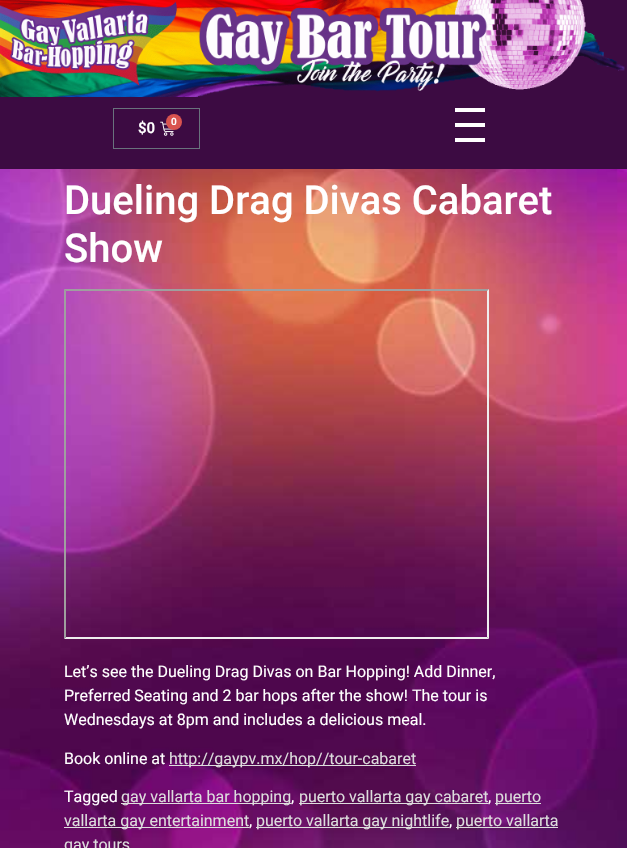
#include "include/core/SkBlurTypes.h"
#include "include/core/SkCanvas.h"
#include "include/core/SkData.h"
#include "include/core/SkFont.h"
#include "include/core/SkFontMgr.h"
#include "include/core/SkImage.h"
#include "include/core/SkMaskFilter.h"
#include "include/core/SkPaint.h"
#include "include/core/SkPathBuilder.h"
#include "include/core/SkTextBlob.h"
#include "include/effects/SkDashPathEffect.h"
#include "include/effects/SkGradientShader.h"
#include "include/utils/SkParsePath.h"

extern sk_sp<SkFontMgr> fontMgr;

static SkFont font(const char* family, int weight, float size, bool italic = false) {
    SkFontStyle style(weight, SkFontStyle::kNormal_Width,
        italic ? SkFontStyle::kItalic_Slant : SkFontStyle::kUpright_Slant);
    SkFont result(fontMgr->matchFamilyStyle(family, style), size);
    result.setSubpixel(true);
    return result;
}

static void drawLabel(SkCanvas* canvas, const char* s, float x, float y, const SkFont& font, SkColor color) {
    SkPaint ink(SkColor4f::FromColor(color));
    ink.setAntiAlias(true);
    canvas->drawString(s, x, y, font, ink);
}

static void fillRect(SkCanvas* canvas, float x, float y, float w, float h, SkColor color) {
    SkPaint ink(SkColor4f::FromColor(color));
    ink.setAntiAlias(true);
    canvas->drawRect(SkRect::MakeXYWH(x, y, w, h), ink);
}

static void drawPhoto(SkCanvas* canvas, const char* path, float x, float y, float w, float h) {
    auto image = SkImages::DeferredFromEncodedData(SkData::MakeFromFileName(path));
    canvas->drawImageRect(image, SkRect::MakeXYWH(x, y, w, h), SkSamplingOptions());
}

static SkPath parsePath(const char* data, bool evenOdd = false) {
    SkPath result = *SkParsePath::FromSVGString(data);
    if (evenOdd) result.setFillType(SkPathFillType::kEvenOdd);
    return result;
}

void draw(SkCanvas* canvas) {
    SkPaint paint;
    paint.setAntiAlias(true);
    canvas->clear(0xFFFFFFFF);
    drawPhoto(canvas, "assets/img1.png", 0, 169, 627, 679);
    fillRect(canvas, 0, 0, 627, 169, 0xFF3C0B42);
    drawPhoto(canvas, "assets/img2.png", 0, 0, 625, 97);
    paint.setStroke(true);
    paint.setStrokeWidth(1);
    paint.setColor(0xFF69727D);
    canvas->drawRect(SkRect::MakeXYWH(113.5f, 108.5f, 86, 40), paint);
    SkFont font1 = font("Roboto", 600, 15);
    drawLabel(canvas, "$0", 138, 133, font1, 0xFFFFFFFF);
    drawPhoto(canvas, "assets/img3.png", 160, 121, 14, 15);
    paint.setStroke(false);
    paint.setColor(0xFFD9534F);
    canvas->drawCircle(174, 122, 8, paint);
    SkFont font2 = font("Roboto", 600, 10);
    drawLabel(canvas, "0", 171, 125, font2, 0xFFFFFFFF);
    fillRect(canvas, 455, 108, 30, 4, 0xFFFFFFFF);
    fillRect(canvas, 455, 123, 30, 4, 0xFFFFFFFF);
    fillRect(canvas, 455, 138, 30, 4, 0xFFFFFFFF);
    SkFont font3 = font("Roboto", 500, 40);
    drawLabel(canvas, "Dueling Drag Divas Cabaret", 64, 214, font3, 0xFFFFFFFF);
    drawLabel(canvas, "Show", 64, 262, font3, 0xFFFFFFFF);
    paint.setColor(0xFF9F9F9F);
    canvas->drawPath(parsePath("M64 289H489L487 291H66Z"), paint);
    paint.setColor(0xFFEEEEEE);
    canvas->drawPath(parsePath("M489 289V639L487 637V291Z"), paint);
    canvas->drawPath(parsePath("M489 639H64L66 637H487Z"), paint);
    paint.setColor(0xFF9F9F9F);
    canvas->drawPath(parsePath("M64 639V289L66 291V637Z"), paint);
    SkFont font4 = font("Roboto", 400, 16);
    drawLabel(canvas, "Let’s see the Dueling Drag Divas on Bar Hopping! Add Dinner,", 64, 677, font4, 0xFFFFFFFF);
    drawLabel(canvas, "Preferred Seating and 2 bar hops after the show! The tour is", 64, 701, font4, 0xFFFFFFFF);
    drawLabel(canvas, "Wednesdays at 8pm and includes a delicious meal.", 64, 725, font4, 0xFFFFFFFF);
    drawLabel(canvas, "Book online at", 64, 764, font4, 0xFFFFFFFF);
    fillRect(canvas, 169, 765, 247, 1, 0xFFDDDDDD);
    drawLabel(canvas, "http://gaypv.mx/hop//tour-cabaret", 169, 764, font4, 0xFFDDDDDD);
    drawLabel(canvas, "Tagged", 64, 802, font4, 0xFFFFFFFF);
    fillRect(canvas, 121, 803, 170, 1, 0xFFDDDDDD);
    drawLabel(canvas, "gay vallarta bar hopping", 121, 802, font4, 0xFFDDDDDD);
    drawLabel(canvas, ",", 291, 802, font4, 0xFFFFFFFF);
    fillRect(canvas, 299, 803, 189, 1, 0xFFDDDDDD);
    drawLabel(canvas, "puerto vallarta gay cabaret", 299, 802, font4, 0xFFDDDDDD);
    drawLabel(canvas, ",", 488, 802, font4, 0xFFFFFFFF);
    fillRect(canvas, 495, 803, 46, 1, 0xFFDDDDDD);
    drawLabel(canvas, "puerto", 495, 802, font4, 0xFFDDDDDD);
    fillRect(canvas, 64, 827, 185, 1, 0xFFDDDDDD);
    drawLabel(canvas, "vallarta gay entertainment", 64, 826, font4, 0xFFDDDDDD);
    drawLabel(canvas, ",", 249, 826, font4, 0xFFFFFFFF);
    fillRect(canvas, 256, 827, 193, 1, 0xFFDDDDDD);
    drawLabel(canvas, "puerto vallarta gay nightlife", 256, 826, font4, 0xFFDDDDDD);
    drawLabel(canvas, ",", 449, 826, font4, 0xFFFFFFFF);
    fillRect(canvas, 456, 827, 102, 1, 0xFFDDDDDD);
    drawLabel(canvas, "puerto vallarta", 456, 826, font4, 0xFFDDDDDD);
    drawLabel(canvas, "gay tours", 64, 850, font4, 0xFFDDDDDD);
}
